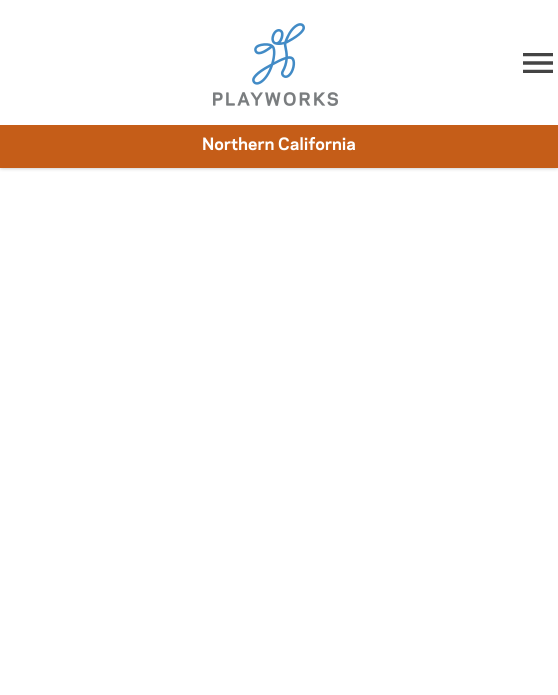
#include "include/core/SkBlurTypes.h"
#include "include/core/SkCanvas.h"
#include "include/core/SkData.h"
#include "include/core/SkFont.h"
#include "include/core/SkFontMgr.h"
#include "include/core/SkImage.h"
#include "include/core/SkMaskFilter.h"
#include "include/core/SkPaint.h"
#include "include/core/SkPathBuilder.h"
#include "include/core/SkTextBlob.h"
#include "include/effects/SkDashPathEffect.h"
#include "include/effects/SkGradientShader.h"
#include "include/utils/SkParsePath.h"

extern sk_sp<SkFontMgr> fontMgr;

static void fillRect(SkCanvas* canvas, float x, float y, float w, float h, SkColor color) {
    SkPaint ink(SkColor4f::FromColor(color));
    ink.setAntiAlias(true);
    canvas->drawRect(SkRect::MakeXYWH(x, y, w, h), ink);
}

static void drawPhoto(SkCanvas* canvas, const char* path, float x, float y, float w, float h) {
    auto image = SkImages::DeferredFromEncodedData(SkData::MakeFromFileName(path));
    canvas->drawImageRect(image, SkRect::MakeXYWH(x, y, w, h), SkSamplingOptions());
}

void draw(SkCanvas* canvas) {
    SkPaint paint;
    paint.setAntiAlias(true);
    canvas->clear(0xFFFFFFFF);
    paint.setColor(0x4D111111);
    paint.setMaskFilter(SkMaskFilter::MakeBlur(kNormal_SkBlurStyle, 2));
    canvas->drawRect(SkRect::MakeXYWH(0, 0, 558, 168), paint);
    paint.setMaskFilter(nullptr);
    fillRect(canvas, 0, 0, 558, 125, 0xFFFFFFFF);
    drawPhoto(canvas, "assets/img1.png", 213, 23, 125, 83);
    drawPhoto(canvas, "assets/img2.png", 523, 53, 30, 20);
    fillRect(canvas, 0, 125, 558, 43, 0xFFC55D18);
    drawPhoto(canvas, "assets/img3.png", 203, 137, 152, 14);
}
